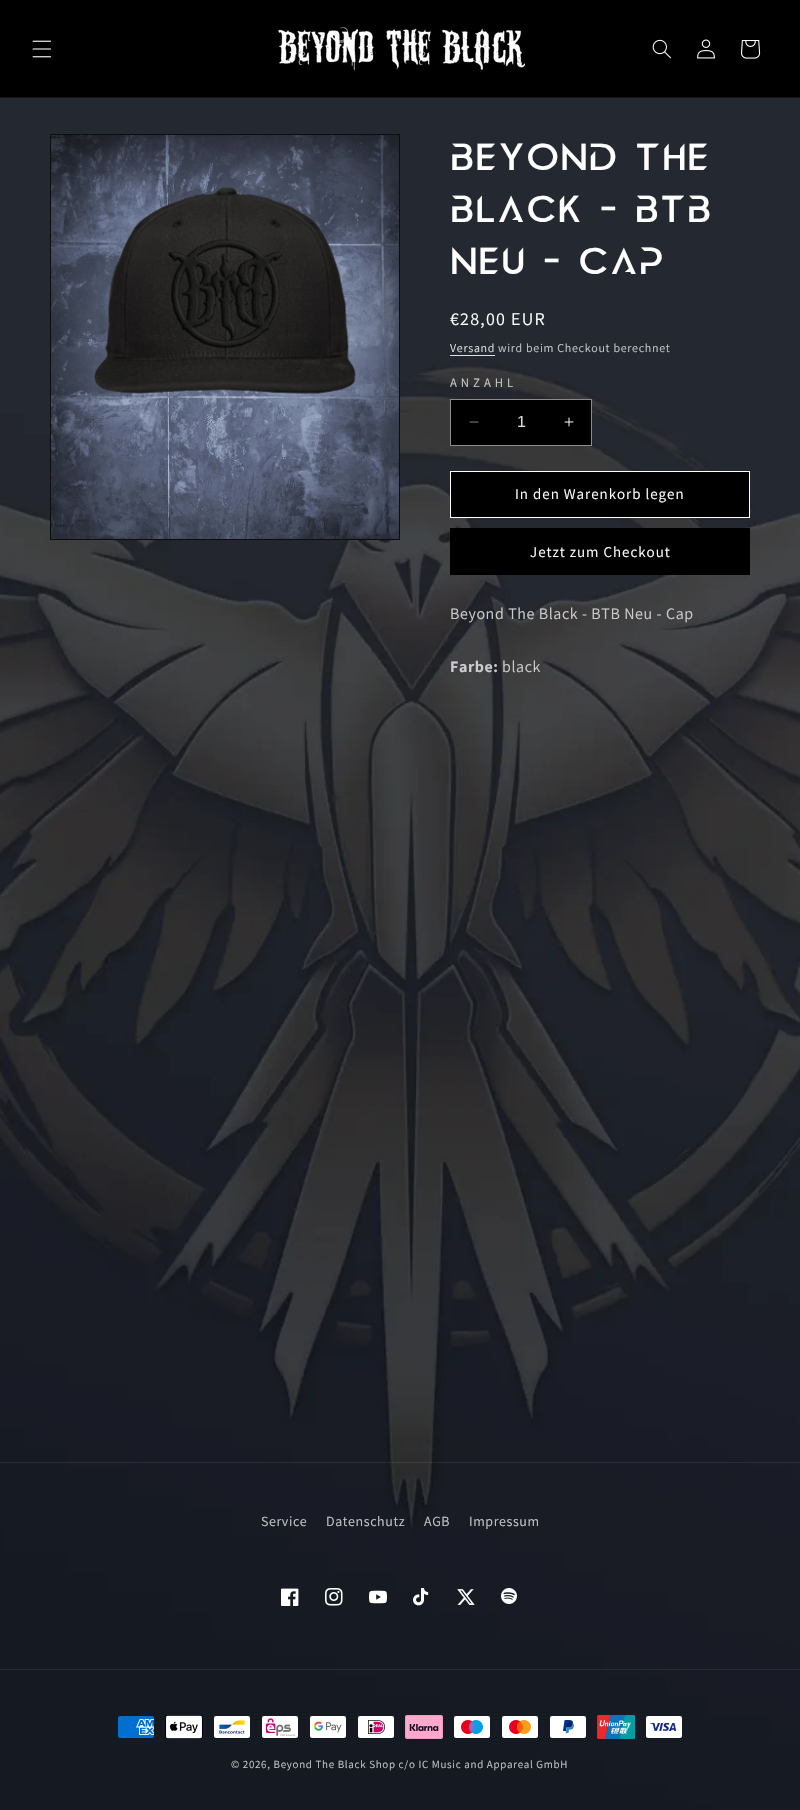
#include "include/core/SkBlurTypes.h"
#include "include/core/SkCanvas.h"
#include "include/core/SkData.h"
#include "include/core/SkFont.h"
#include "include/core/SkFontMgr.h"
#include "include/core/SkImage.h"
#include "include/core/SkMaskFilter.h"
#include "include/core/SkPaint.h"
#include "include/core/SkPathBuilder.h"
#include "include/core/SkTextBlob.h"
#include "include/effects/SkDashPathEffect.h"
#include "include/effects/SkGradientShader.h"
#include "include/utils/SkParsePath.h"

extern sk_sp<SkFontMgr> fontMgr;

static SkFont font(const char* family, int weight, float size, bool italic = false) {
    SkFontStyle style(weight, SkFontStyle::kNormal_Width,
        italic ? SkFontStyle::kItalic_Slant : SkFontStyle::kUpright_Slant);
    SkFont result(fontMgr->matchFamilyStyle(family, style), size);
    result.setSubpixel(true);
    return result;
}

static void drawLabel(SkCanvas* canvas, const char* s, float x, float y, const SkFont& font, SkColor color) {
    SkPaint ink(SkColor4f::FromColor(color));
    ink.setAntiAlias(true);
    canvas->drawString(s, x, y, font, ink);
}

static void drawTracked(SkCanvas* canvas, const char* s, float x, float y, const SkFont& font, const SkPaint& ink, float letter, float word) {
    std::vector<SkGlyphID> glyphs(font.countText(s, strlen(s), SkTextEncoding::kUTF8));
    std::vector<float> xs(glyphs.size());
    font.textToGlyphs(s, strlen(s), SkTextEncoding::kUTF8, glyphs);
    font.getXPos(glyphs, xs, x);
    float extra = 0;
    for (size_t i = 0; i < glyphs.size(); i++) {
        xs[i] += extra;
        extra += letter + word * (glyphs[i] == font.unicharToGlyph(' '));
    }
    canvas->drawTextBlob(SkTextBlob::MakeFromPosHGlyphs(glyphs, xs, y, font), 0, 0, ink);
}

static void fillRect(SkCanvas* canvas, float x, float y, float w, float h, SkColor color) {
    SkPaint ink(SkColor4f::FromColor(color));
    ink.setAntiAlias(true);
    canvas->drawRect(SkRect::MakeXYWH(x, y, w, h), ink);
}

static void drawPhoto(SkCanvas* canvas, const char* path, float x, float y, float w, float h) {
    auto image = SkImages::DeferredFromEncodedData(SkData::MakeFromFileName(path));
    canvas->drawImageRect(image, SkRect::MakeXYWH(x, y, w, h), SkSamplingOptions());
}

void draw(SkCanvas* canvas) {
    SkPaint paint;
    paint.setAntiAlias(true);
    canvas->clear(0xFFFFFFFF);
    drawPhoto(canvas, "assets/img1.png", 0, 98, 800, 1712);
    fillRect(canvas, 0, 0, 800, 97, 0xFF000000);
    fillRect(canvas, 0, 97, 800, 1, 0xFF141414);
    drawPhoto(canvas, "assets/img2.png", 32, 40, 20, 18);
    drawPhoto(canvas, "assets/img3.png", 278, 26, 247, 45);
    drawPhoto(canvas, "assets/img4.png", 652, 39, 19, 20);
    drawPhoto(canvas, "assets/img5.png", 697, 39, 18, 20);
    drawPhoto(canvas, "assets/img6.png", 741, 40, 20, 19);
    paint.setStroke(true);
    paint.setStrokeWidth(1);
    paint.setColor(0xFF0D0D0D);
    canvas->drawRect(SkRect::MakeXYWH(50.5f, 134.5f, 349, 405), paint);
    drawPhoto(canvas, "assets/img7.png", 51, 135, 348, 404);
    SkFont font1 = font("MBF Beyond", 400, 40);
    paint.setStroke(false);
    paint.setColor(0xFFFFFFFF);
    drawTracked(canvas, "Beyond The", 450, 170, font1, paint, 0.6f, 0);
    drawTracked(canvas, "Black - BTB", 450, 222, font1, paint, 0.6f, 0);
    drawTracked(canvas, "Neu - Cap", 450, 274, font1, paint, 0.6f, 0);
    SkFont font2 = font("Assistant", 400, 18);
    drawTracked(canvas, "€28,00 EUR", 450, 325, font2, paint, 1.25f, 0);
    SkFont font3 = font("Assistant", 400, 12);
    paint.setColor(0xFFDEDFE0);
    drawTracked(canvas, "Versand", 450, 352, font3, paint, 0.7f, 0);
    fillRect(canvas, 450, 355, 45, 1, 0xFFDEDFE0);
    paint.setColor(0xFFC5C6C8);
    drawTracked(canvas, "wird beim Checkout berechnet", 498, 352, font3, paint, 0.7f, 0);
    SkFont font4 = font("Assistant", 400, 12.75f);
    paint.setColor(0xFFCCCCCC);
    drawTracked(canvas, "ANZAHL", 450, 387, font4, paint, 4, 0);
    fillRect(canvas, 451, 400, 140, 45, 0xFF000000);
    drawPhoto(canvas, "assets/img8.png", 469, 421, 10, 2);
    drawPhoto(canvas, "assets/img9.png", 564, 417, 10, 10);
    paint.setStroke(true);
    paint.setColor(0xFF8C8C8C);
    canvas->drawRect(SkRect::MakeXYWH(450.5f, 399.5f, 141, 46), paint);
    SkFont font5 = font("Liberation Sans", 400, 16);
    drawLabel(canvas, "1", 517, 427, font5, 0xFFD9D9D9);
    fillRect(canvas, 451, 472, 298, 45, 0xFF000000);
    paint.setColor(0xFFFFFFFF);
    canvas->drawRect(SkRect::MakeXYWH(450.5f, 471.5f, 299, 46), paint);
    SkFont font6 = font("Assistant", 400, 15);
    paint.setStroke(false);
    drawTracked(canvas, "In den Warenkorb legen", 515, 499, font6, paint, 1, 0);
    fillRect(canvas, 450, 528, 300, 47, 0xFF000000);
    drawTracked(canvas, "Jetzt zum Checkout", 530, 557, font6, paint, 1, 0);
    SkFont font7 = font("Assistant", 400, 16);
    paint.setColor(0xFFCCCCCC);
    drawTracked(canvas, "Beyond The Black - BTB Neu - Cap", 450, 619, font7, paint, 0.6f, 0);
    SkFont font8 = font("Assistant", 700, 16);
    drawTracked(canvas, "Farbe:", 450, 672, font8, paint, 0.6f, 0);
    drawTracked(canvas, "black", 502, 672, font7, paint, 0.6f, 0);
    fillRect(canvas, 0, 1462, 800, 1, 0x14FFFFFF);
    SkFont font9 = font("Assistant", 400, 14);
    paint.setColor(0xFFC5C6C8);
    drawTracked(canvas, "Service", 261, 1526, font9, paint, 0.6f, 0);
    drawTracked(canvas, "Datenschutz", 326, 1526, font9, paint, 0.6f, 0);
    drawTracked(canvas, "AGB", 424, 1526, font9, paint, 0.6f, 0);
    drawTracked(canvas, "Impressum", 469, 1526, font9, paint, 0.6f, 0);
    drawPhoto(canvas, "assets/img10.png", 281, 1588, 18, 18);
    drawPhoto(canvas, "assets/img11.png", 325, 1588, 18, 18);
    drawPhoto(canvas, "assets/img12.png", 369, 1590, 18, 14);
    drawPhoto(canvas, "assets/img13.png", 413, 1588, 16, 18);
    drawPhoto(canvas, "assets/img14.png", 457, 1589, 18, 16);
    drawPhoto(canvas, "assets/img15.png", 501, 1588, 16, 16);
    fillRect(canvas, 0, 1669, 800, 1, 0x14FFFFFF);
    drawPhoto(canvas, "assets/img16.png", 118, 1716, 36, 22);
    drawPhoto(canvas, "assets/img17.png", 165, 1715, 38, 24);
    drawPhoto(canvas, "assets/img18.png", 214, 1716, 36, 22);
    drawPhoto(canvas, "assets/img19.png", 262, 1716, 36, 22);
    drawPhoto(canvas, "assets/img20.png", 310, 1716, 36, 22);
    drawPhoto(canvas, "assets/img21.png", 358, 1716, 36, 22);
    drawPhoto(canvas, "assets/img22.png", 405, 1715, 38, 24);
    drawPhoto(canvas, "assets/img23.png", 454, 1716, 36, 22);
    drawPhoto(canvas, "assets/img24.png", 502, 1716, 36, 22);
    drawPhoto(canvas, "assets/img25.png", 550, 1716, 36, 22);
    drawPhoto(canvas, "assets/img26.png", 597, 1715, 38, 24);
    drawPhoto(canvas, "assets/img27.png", 646, 1716, 36, 22);
    SkFont font10 = font("Assistant", 400, 11);
    drawTracked(canvas, "© 2026, Beyond The Black Shop c/o IC Music and Appareal GmbH", 231, 1768, font10, paint, 0.7f, 0);
}
